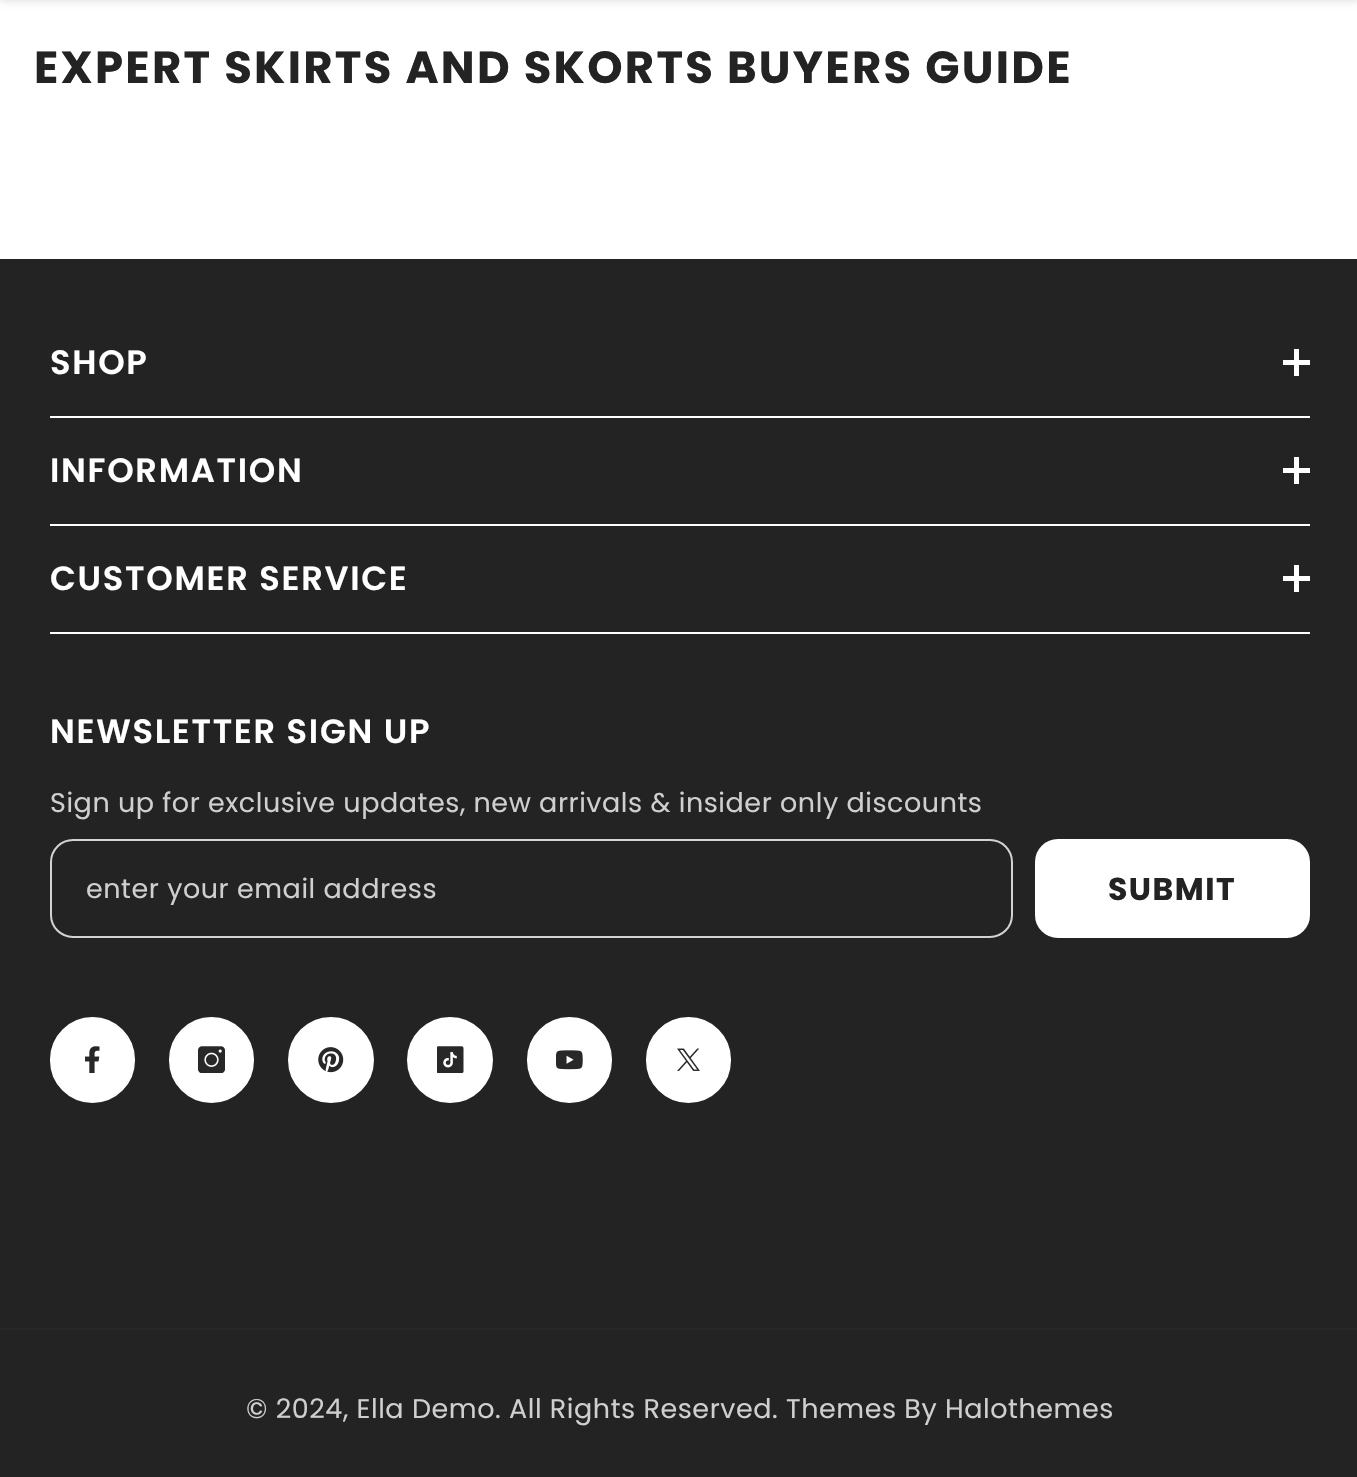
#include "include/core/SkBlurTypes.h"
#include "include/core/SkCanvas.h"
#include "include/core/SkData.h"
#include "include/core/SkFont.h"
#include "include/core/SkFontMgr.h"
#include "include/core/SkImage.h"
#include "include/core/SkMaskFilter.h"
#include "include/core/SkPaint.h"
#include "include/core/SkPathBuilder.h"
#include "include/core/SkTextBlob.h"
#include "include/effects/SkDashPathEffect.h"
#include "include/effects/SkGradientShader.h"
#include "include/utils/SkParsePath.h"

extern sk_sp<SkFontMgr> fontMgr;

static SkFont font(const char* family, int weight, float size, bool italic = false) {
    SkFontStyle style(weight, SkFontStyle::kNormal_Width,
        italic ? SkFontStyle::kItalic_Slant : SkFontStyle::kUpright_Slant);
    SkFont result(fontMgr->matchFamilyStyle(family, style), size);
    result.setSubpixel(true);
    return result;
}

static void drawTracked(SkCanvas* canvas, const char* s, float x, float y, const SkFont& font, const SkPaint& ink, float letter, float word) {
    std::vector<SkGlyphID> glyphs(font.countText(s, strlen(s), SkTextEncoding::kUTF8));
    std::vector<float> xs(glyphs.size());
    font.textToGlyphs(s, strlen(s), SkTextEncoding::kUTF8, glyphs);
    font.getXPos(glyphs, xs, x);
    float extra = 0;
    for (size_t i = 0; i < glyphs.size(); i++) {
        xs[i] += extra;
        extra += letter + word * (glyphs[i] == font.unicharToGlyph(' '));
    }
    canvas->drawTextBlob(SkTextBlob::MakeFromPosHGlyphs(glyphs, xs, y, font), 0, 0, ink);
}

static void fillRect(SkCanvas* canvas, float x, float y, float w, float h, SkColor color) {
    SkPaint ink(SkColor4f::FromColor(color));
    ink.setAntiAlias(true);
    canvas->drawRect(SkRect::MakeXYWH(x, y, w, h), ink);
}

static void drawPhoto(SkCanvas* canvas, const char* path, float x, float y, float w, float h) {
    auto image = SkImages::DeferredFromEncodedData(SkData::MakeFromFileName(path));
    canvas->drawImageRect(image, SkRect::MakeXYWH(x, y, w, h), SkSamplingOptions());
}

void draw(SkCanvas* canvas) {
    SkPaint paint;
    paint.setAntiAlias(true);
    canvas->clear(0xFFFFFFFF);
    paint.setColor(0x1A000000);
    paint.setMaskFilter(SkMaskFilter::MakeBlur(kNormal_SkBlurStyle, 3.5f));
    canvas->drawRect(SkRect::MakeXYWH(0, -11, 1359, 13), paint);
    paint.setMaskFilter(nullptr);
    SkFont font1 = font("Poppins", 700, 45);
    paint.setColor(0xFF232323);
    drawTracked(canvas, "EXPERT SKIRTS AND SKORTS BUYERS GUIDE", 34, 83, font1, paint, 2.25f, 0);
    fillRect(canvas, 0, 259, 1357, 1069, 0xFF232323);
    fillRect(canvas, 50, 416, 1260, 2, 0xFFFFFFFF);
    SkFont font2 = font("Poppins", 600, 33.75f);
    paint.setColor(0xFFFFFFFF);
    drawTracked(canvas, "SHOP", 50, 374, font2, paint, 1.7f, 0);
    fillRect(canvas, 1294, 349, 5, 27, 0xFFFFFFFF);
    fillRect(canvas, 1283, 360, 27, 5, 0xFFFFFFFF);
    fillRect(canvas, 50, 524, 1260, 2, 0xFFFFFFFF);
    drawTracked(canvas, "INFORMATION", 50, 482, font2, paint, 1.7f, 0);
    fillRect(canvas, 1294, 457, 5, 27, 0xFFFFFFFF);
    fillRect(canvas, 1283, 468, 27, 5, 0xFFFFFFFF);
    fillRect(canvas, 50, 632, 1260, 2, 0xFFFFFFFF);
    drawTracked(canvas, "CUSTOMER SERVICE", 50, 590, font2, paint, 1.7f, 0);
    fillRect(canvas, 1294, 565, 5, 27, 0xFFFFFFFF);
    fillRect(canvas, 1283, 576, 27, 5, 0xFFFFFFFF);
    drawTracked(canvas, "NEWSLETTER SIGN UP", 50, 743, font2, paint, 1.7f, 0);
    SkFont font3 = font("Poppins", 400, 27);
    paint.setColor(0xFFCFCFCF);
    drawTracked(canvas, "Sign up for exclusive updates, new arrivals & insider only discounts", 50, 812, font3, paint, 0.55f, 0);
    paint.setStroke(true);
    paint.setStrokeWidth(2);
    paint.setColor(0xFFD3D3D3);
    canvas->drawRoundRect(SkRect::MakeXYWH(51, 840, 961, 97), 22, 22, paint);
    paint.setStroke(false);
    paint.setColor(0xFFCFCFCF);
    drawTracked(canvas, "enter your email address", 86, 898, font3, paint, 0.55f, 0);
    paint.setColor(0xFFFFFFFF);
    canvas->drawRoundRect(SkRect::MakeXYWH(1036, 840, 273, 97), 22, 22, paint);
    paint.setStroke(true);
    canvas->drawRoundRect(SkRect::MakeXYWH(1036, 840, 273, 97), 22, 22, paint);
    SkFont font4 = font("Poppins", 700, 31.5f);
    paint.setStroke(false);
    paint.setColor(0xFF232323);
    drawTracked(canvas, "SUBMIT", 1108, 900, font4, paint, 1.5f, 0);
    paint.setColor(0xFFFFFFFF);
    canvas->drawRoundRect(SkRect::MakeXYWH(51, 1018, 83, 84), 41.5f, 41.5f, paint);
    paint.setStroke(true);
    canvas->drawRoundRect(SkRect::MakeXYWH(51, 1018, 83, 84), 41.5f, 41.5f, paint);
    drawPhoto(canvas, "assets/img1.png", 85, 1046, 15, 27);
    paint.setStroke(false);
    canvas->drawRoundRect(SkRect::MakeXYWH(170, 1018, 83, 84), 41.5f, 41.5f, paint);
    paint.setStroke(true);
    canvas->drawRoundRect(SkRect::MakeXYWH(170, 1018, 83, 84), 41.5f, 41.5f, paint);
    drawPhoto(canvas, "assets/img2.png", 198, 1046, 27, 27);
    paint.setStroke(false);
    canvas->drawCircle(331, 1060, 42, paint);
    paint.setStroke(true);
    canvas->drawCircle(331, 1060, 42, paint);
    drawPhoto(canvas, "assets/img3.png", 318, 1047, 26, 26);
    paint.setStroke(false);
    canvas->drawCircle(450, 1060, 42, paint);
    paint.setStroke(true);
    canvas->drawCircle(450, 1060, 42, paint);
    drawPhoto(canvas, "assets/img4.png", 437, 1046, 27, 27);
    paint.setStroke(false);
    canvas->drawRoundRect(SkRect::MakeXYWH(528, 1018, 83, 84), 41.5f, 41.5f, paint);
    paint.setStroke(true);
    canvas->drawRoundRect(SkRect::MakeXYWH(528, 1018, 83, 84), 41.5f, 41.5f, paint);
    drawPhoto(canvas, "assets/img5.png", 556, 1050, 27, 20);
    paint.setStroke(false);
    canvas->drawRoundRect(SkRect::MakeXYWH(647, 1018, 83, 84), 41.5f, 41.5f, paint);
    paint.setStroke(true);
    canvas->drawRoundRect(SkRect::MakeXYWH(647, 1018, 83, 84), 41.5f, 41.5f, paint);
    drawPhoto(canvas, "assets/img6.png", 677, 1048, 23, 23);
    fillRect(canvas, 0, 1330, 1357, 147, 0xFF232323);
    fillRect(canvas, 0, 1328, 1357, 2, 0xFF282828);
    paint.setStroke(false);
    paint.setColor(0xFFCFCFCF);
    drawTracked(canvas, "© 2024, Ella Demo. All Rights Reserved. Themes By Halothemes", 246, 1418, font3, paint, 0.55f, 0);
}
